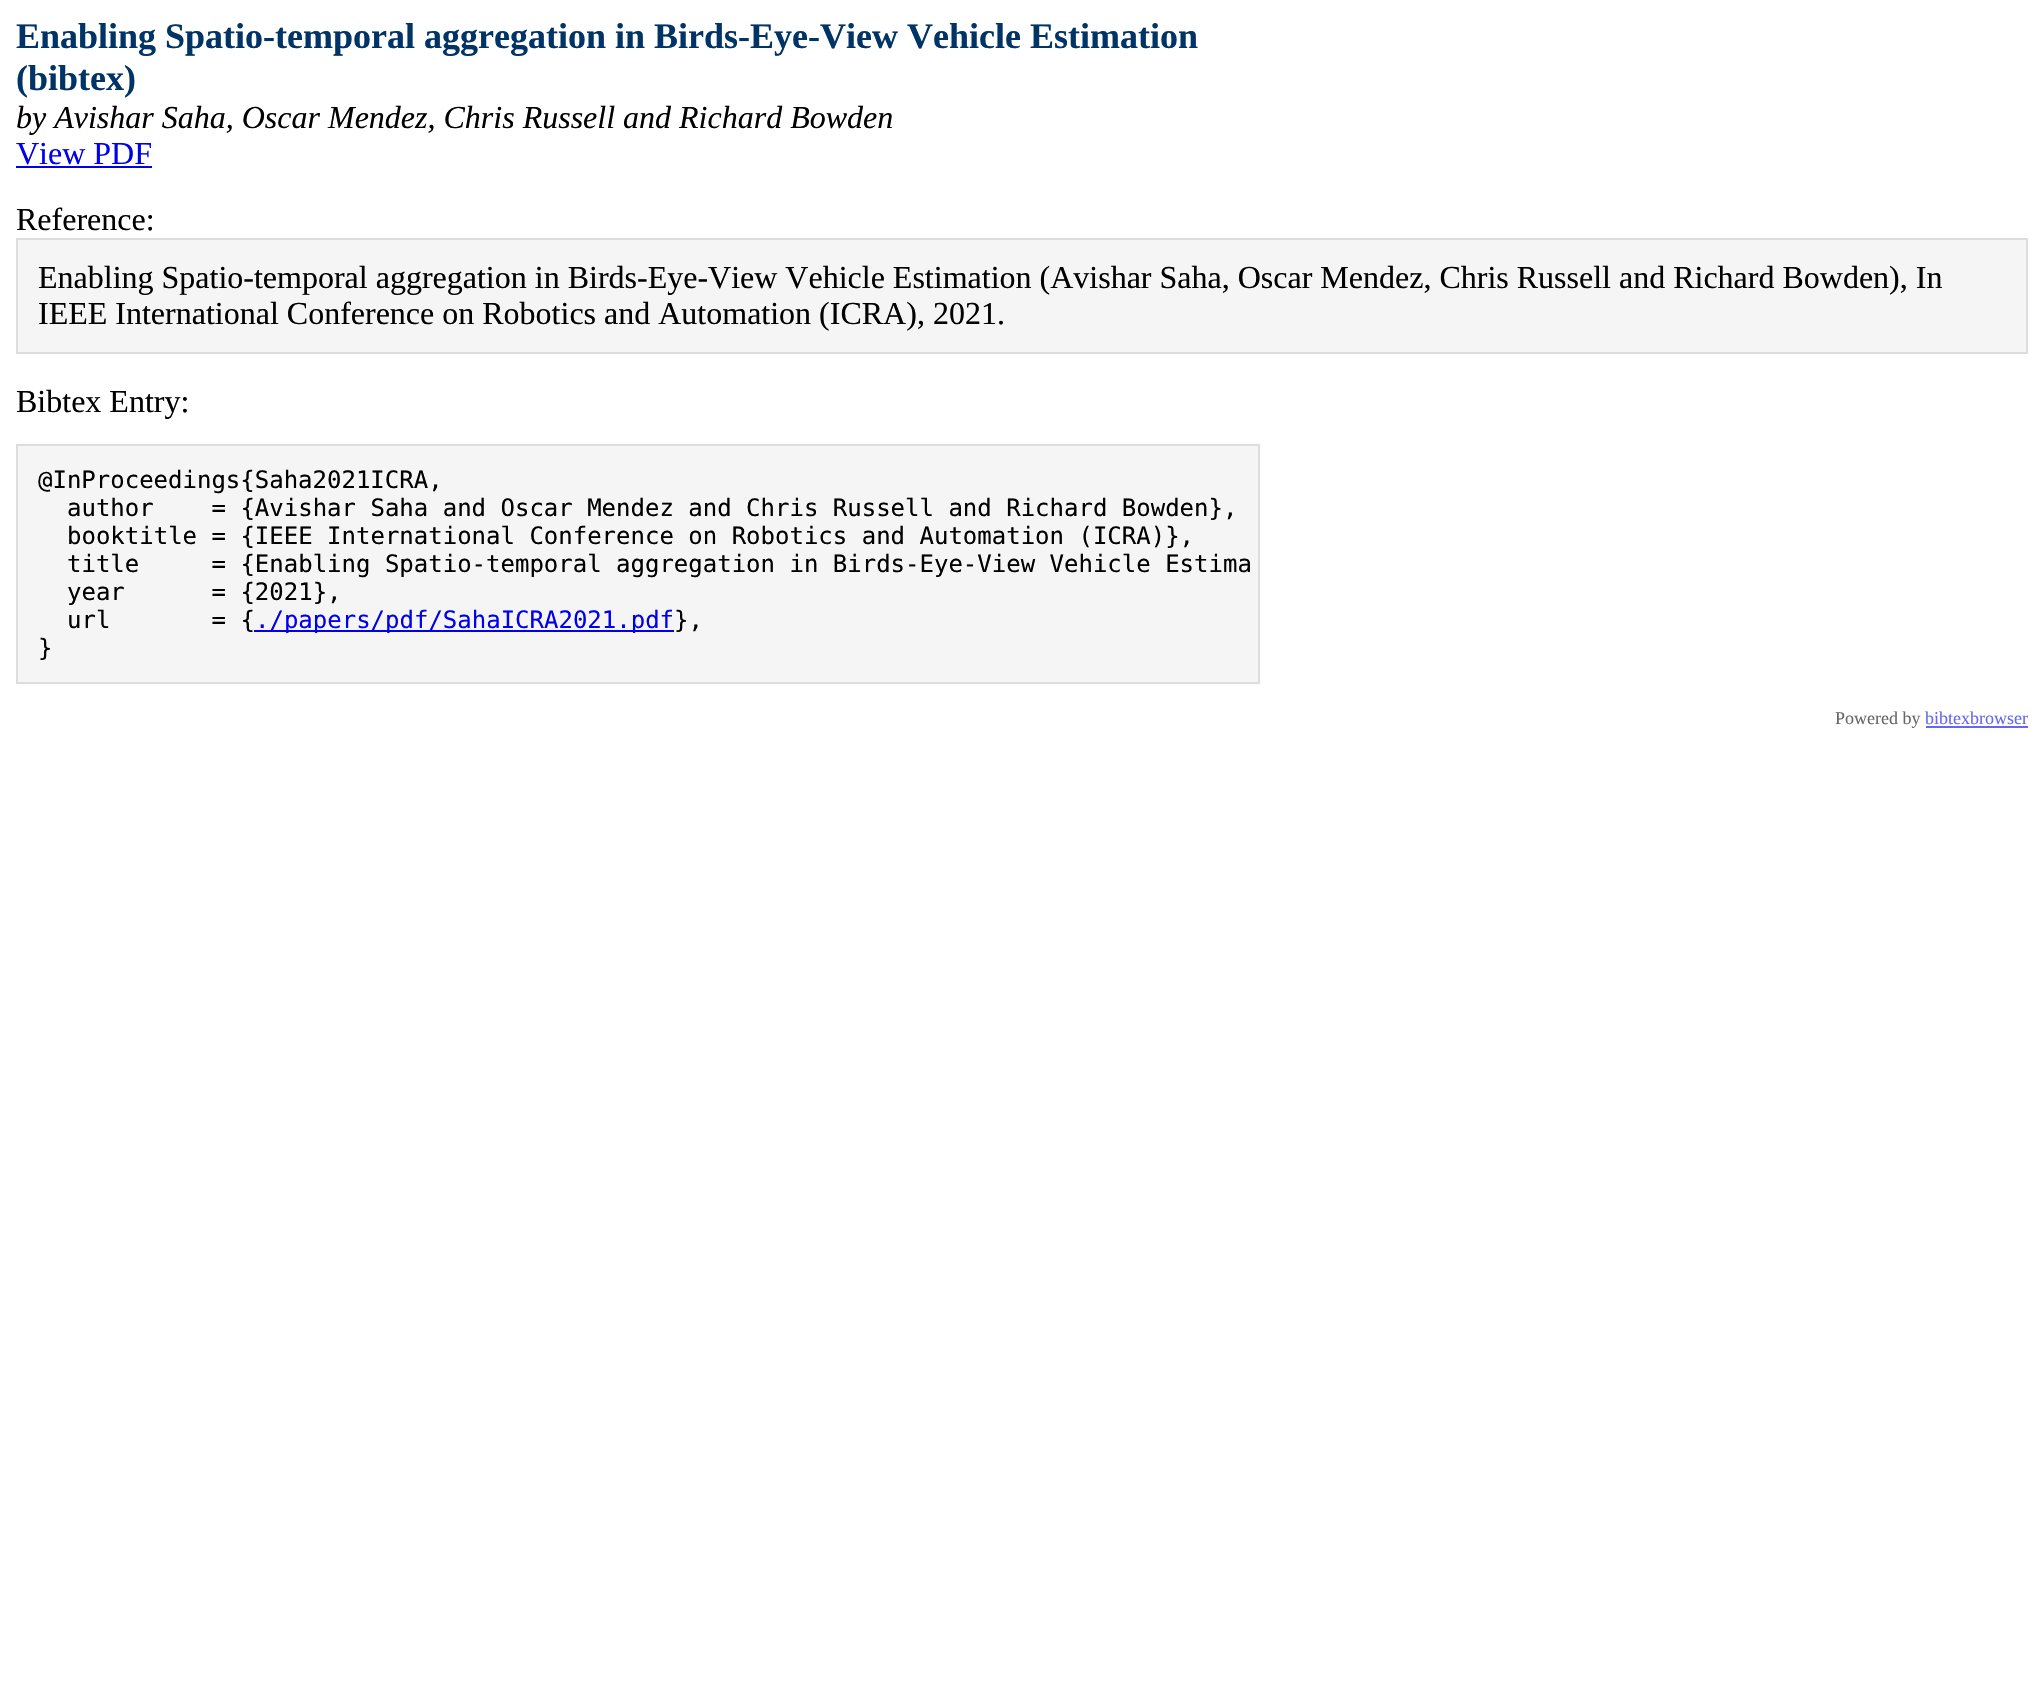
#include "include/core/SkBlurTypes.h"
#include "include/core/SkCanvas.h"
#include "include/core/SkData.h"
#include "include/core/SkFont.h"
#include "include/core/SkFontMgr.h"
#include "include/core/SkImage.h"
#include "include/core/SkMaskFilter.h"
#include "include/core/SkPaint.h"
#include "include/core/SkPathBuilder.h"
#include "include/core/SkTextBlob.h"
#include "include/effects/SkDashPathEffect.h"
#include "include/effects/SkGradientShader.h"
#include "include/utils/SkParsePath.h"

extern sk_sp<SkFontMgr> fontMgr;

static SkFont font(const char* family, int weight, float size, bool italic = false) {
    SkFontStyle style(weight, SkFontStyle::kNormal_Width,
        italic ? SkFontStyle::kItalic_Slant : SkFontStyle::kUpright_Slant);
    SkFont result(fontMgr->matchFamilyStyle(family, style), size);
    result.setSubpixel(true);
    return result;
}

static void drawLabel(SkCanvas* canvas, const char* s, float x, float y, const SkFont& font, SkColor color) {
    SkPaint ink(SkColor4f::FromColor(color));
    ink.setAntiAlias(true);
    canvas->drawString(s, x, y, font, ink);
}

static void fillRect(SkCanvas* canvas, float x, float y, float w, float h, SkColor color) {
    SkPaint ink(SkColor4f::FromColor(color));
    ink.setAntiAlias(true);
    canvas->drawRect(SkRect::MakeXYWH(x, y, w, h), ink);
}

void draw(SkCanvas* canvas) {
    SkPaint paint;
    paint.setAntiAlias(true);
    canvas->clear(0xFFFFFFFF);
    SkFont font1 = font("Liberation Serif", 700, 36);
    drawLabel(canvas, "Enabling Spatio-temporal aggregation in Birds-Eye-View Vehicle Estimation", 16, 48, font1, 0xFF003366);
    drawLabel(canvas, "(bibtex)", 16, 90, font1, 0xFF003366);
    SkFont font2 = font("Liberation Serif", 400, 32, true);
    drawLabel(canvas, "by Avishar Saha, Oscar Mendez, Chris Russell and Richard Bowden", 16, 128, font2, 0xFF000000);
    SkFont font3 = font("Liberation Serif", 400, 32);
    drawLabel(canvas, "View PDF", 16, 164, font3, 0xFF0000EE);
    fillRect(canvas, 16, 166, 136, 2, 0xFF0000EE);
    drawLabel(canvas, "Reference:", 16, 230, font3, 0xFF000000);
    paint.setColor(0xFFF5F5F5);
    canvas->drawRect(SkRect::MakeXYWH(17, 239, 2010, 114), paint);
    paint.setStroke(true);
    paint.setStrokeWidth(2);
    paint.setColor(0xFFDDDDDD);
    canvas->drawRect(SkRect::MakeXYWH(17, 239, 2010, 114), paint);
    drawLabel(canvas, "Enabling Spatio-temporal aggregation in Birds-Eye-View Vehicle Estimation (Avishar Saha, Oscar Mendez, Chris Russell and Richard Bowden), In", 38, 288, font3, 0xFF000000);
    drawLabel(canvas, "IEEE International Conference on Robotics and Automation (ICRA), 2021.", 38, 324, font3, 0xFF000000);
    drawLabel(canvas, "Bibtex Entry:", 16, 412, font3, 0xFF000000);
    paint.setStroke(false);
    paint.setColor(0xFFF5F5F5);
    canvas->drawRect(SkRect::MakeXYWH(17, 445, 1242, 238), paint);
    paint.setStroke(true);
    paint.setColor(0xFFDDDDDD);
    canvas->drawRect(SkRect::MakeXYWH(17, 445, 1242, 238), paint);
    SkFont font4 = font("DejaVu Sans Mono", 400, 24);
    drawLabel(canvas, "@InProceedings{Saha2021ICRA,", 38, 488, font4, 0xFF000000);
    drawLabel(canvas, "author    = {Avishar Saha and Oscar Mendez and Chris Russell and Richard Bowden},", 67, 516, font4, 0xFF000000);
    drawLabel(canvas, "booktitle = {IEEE International Conference on Robotics and Automation (ICRA)},", 67, 544, font4, 0xFF000000);
    drawLabel(canvas, "title     = {Enabling Spatio-temporal aggregation in Birds-Eye-View Vehicle Estima", 67, 572, font4, 0xFF000000);
    drawLabel(canvas, "year      = {2021},", 67, 600, font4, 0xFF000000);
    drawLabel(canvas, "url       = {", 67, 628, font4, 0xFF000000);
    fillRect(canvas, 254, 630, 420, 2, 0xFF0000EE);
    drawLabel(canvas, "./papers/pdf/SahaICRA2021.pdf", 255, 628, font4, 0xFF0000EE);
    drawLabel(canvas, "},", 674, 628, font4, 0xFF000000);
    drawLabel(canvas, "}", 38, 656, font4, 0xFF000000);
    SkFont font5 = font("Liberation Serif", 400, 18);
    drawLabel(canvas, "Powered by", 1835, 724, font5, 0xFF666666);
    drawLabel(canvas, "bibtexbrowser", 1925, 724, font5, 0xFF6666F5);
    fillRect(canvas, 1926, 726, 102, 2, 0xFF6666F5);
}
